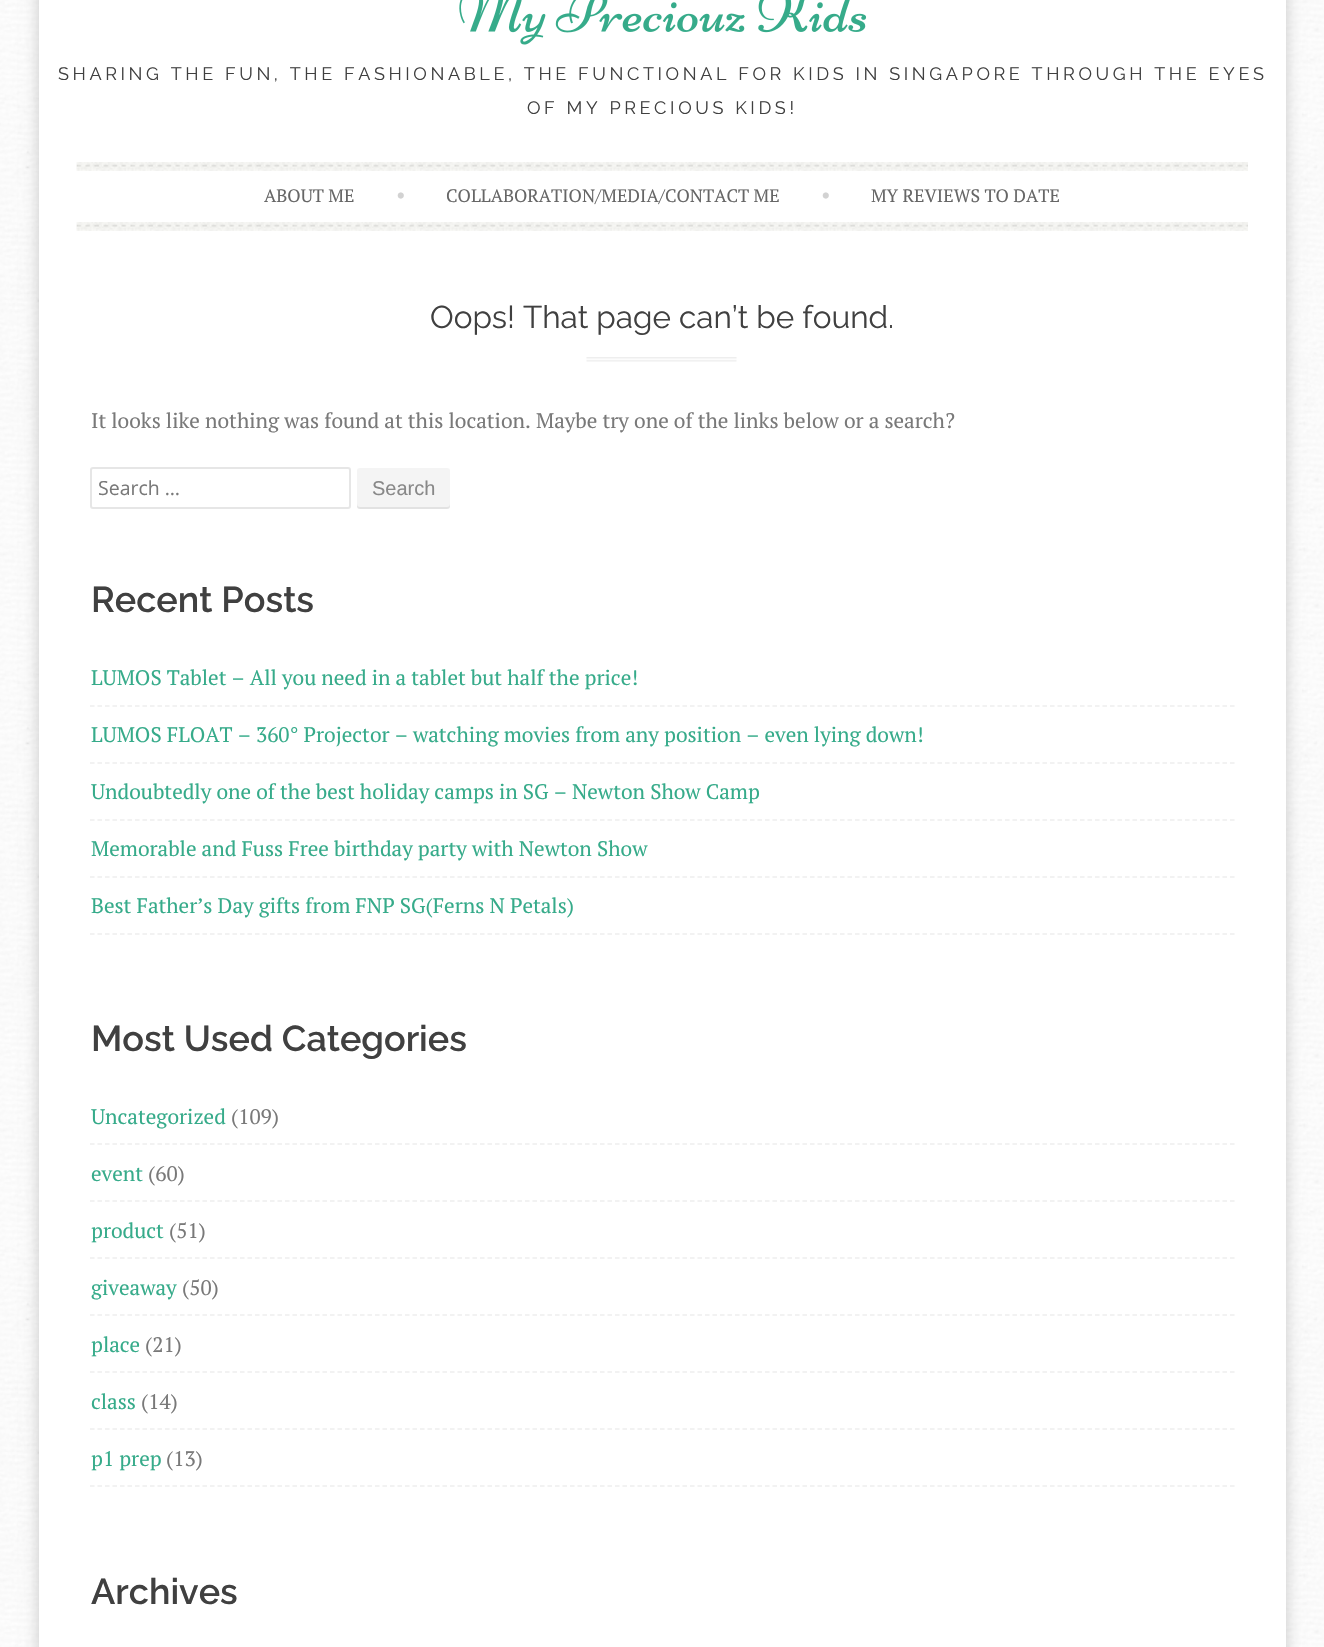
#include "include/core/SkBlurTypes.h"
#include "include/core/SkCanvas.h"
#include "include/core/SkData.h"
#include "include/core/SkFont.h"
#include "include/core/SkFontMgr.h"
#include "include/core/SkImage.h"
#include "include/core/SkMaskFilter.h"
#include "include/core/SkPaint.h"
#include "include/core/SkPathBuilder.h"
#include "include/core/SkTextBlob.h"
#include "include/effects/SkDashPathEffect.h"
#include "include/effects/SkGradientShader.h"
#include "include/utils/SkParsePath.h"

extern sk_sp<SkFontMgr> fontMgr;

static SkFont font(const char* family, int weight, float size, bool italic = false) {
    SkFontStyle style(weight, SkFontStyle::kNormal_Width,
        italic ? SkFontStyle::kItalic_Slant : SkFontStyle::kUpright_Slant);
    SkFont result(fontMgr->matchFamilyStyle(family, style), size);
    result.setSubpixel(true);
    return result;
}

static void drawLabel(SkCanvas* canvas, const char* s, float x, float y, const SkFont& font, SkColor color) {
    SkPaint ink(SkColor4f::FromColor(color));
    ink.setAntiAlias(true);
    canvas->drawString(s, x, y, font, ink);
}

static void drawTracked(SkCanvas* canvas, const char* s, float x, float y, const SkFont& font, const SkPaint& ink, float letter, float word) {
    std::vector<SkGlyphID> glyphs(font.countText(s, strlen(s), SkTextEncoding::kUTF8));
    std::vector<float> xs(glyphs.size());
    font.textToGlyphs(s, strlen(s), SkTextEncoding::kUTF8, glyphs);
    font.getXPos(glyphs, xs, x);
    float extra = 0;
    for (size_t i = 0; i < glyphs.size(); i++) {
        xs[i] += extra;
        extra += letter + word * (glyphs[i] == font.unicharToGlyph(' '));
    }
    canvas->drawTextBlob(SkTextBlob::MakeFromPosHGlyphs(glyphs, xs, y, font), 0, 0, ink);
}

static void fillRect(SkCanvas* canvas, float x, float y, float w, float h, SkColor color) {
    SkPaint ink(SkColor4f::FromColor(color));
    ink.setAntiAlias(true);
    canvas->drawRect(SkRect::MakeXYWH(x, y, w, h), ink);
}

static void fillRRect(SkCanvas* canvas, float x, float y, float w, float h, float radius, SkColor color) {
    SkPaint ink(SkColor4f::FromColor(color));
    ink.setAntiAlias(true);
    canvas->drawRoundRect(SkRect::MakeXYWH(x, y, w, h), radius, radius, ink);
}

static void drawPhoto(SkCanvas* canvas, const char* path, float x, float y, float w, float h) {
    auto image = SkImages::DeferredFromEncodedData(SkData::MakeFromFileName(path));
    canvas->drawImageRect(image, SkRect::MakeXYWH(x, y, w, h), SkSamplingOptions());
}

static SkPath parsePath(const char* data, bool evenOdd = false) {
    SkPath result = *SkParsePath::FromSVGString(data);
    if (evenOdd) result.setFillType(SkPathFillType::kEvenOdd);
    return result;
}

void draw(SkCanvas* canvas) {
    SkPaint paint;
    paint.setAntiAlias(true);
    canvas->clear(0xFFFFFFFF);
    drawPhoto(canvas, "assets/img1.png", 0, 0, 1324, 1647);
    paint.setColor(0x33000000);
    paint.setMaskFilter(SkMaskFilter::MakeBlur(kNormal_SkBlurStyle, 7.5f));
    canvas->drawRect(SkRect::MakeXYWH(39, -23, 1247, 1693), paint);
    paint.setMaskFilter(nullptr);
    fillRect(canvas, 39, 0, 1247, 1647, 0xFFFFFFFF);
    drawPhoto(canvas, "assets/img2.png", 459, 0, 408, 45);
    SkFont font1 = font("Raleway", 400, 18);
    paint.setColor(0xFF404040);
    drawTracked(canvas, "SHARING THE FUN, THE FASHIONABLE, THE FUNCTIONAL FOR KIDS IN SINGAPORE THROUGH THE EYES", 58, 80, font1, paint, 3.6f, 0);
    drawTracked(canvas, "OF MY PRECIOUS KIDS!", 527, 114, font1, paint, 3.6f, 0);
    drawPhoto(canvas, "assets/img3.png", 76, 162, 1172, 9);
    SkFont font2 = font("PT Serif", 400, 18);
    drawLabel(canvas, "ABOUT ME", 264, 202, font2, 0xFF666666);
    SkFont font3 = font("PT Serif", 400, 21);
    drawLabel(canvas, "•", 396, 202, font3, 0xFFD2D2D2);
    drawLabel(canvas, "COLLABORATION/MEDIA/CONTACT ME", 446, 202, font2, 0xFF666666);
    drawLabel(canvas, "•", 821, 202, font3, 0xFFD2D2D2);
    drawLabel(canvas, "MY REVIEWS TO DATE", 871, 202, font2, 0xFF666666);
    drawPhoto(canvas, "assets/img4.png", 76, 222, 1172, 9);
    drawPhoto(canvas, "assets/img5.png", 586, 357, 151, 5);
    SkFont font4 = font("Raleway", 400, 31.5f);
    drawLabel(canvas, "Oops! That page can’t be found.", 430, 328, font4, 0xFF404040);
    drawLabel(canvas, "It looks like nothing was found at this location. Maybe try one of the links below or a search?", 91, 428, font3, 0xFF797979);
    paint.setStroke(true);
    paint.setStrokeWidth(2);
    paint.setColor(0xFFE6E6E6);
    canvas->drawRoundRect(SkRect::MakeXYWH(91, 468, 259, 40), 2, 2, paint);
    SkFont font5 = font("Open Sans", 400, 19.5f);
    drawLabel(canvas, "Search …", 98, 495, font5, 0xFF797979);
    fillRRect(canvas, 357, 468, 93, 41, 3, 0xFFF4F4F4);
    paint.setStroke(false);
    paint.setColor(0x12000000);
    canvas->drawPath(parsePath("M357 504V506C357 508 358 509 360 509H447C449 509 450 508 450 506V504C450 506 449 507 447 507H360C358 507 357 506 357 504Z"), paint);
    SkFont font6 = font("Liberation Sans", 400, 20);
    drawLabel(canvas, "Search", 372, 495, font6, 0xFF888888);
    SkFont font7 = font("Raleway", 600, 36);
    drawLabel(canvas, "Recent Posts", 91, 612, font7, 0xFF404040);
    paint.setStroke(true);
    paint.setStrokeWidth(1.5f);
    paint.setColor(0xFFEEEEEE);
    paint.setPathEffect(SkDashPathEffect::Make({{4.5f, 3}}, 0));
    canvas->drawPath(parsePath("M90 706H1234.5"), paint);
    paint.setPathEffect(nullptr);
    drawLabel(canvas, "LUMOS Tablet – All you need in a tablet but half the price!", 91, 685, font3, 0xFF36AB8A);
    paint.setPathEffect(SkDashPathEffect::Make({{4.5f, 3}}, 0));
    canvas->drawPath(parsePath("M90 763H1234.5"), paint);
    paint.setPathEffect(nullptr);
    drawLabel(canvas, "LUMOS FLOAT – 360° Projector – watching movies from any position – even lying down!", 91, 742, font3, 0xFF36AB8A);
    paint.setPathEffect(SkDashPathEffect::Make({{4.5f, 3}}, 0));
    canvas->drawPath(parsePath("M90 820H1234.5"), paint);
    paint.setPathEffect(nullptr);
    drawLabel(canvas, "Undoubtedly one of the best holiday camps in SG – Newton Show Camp", 91, 799, font3, 0xFF36AB8A);
    paint.setPathEffect(SkDashPathEffect::Make({{4.5f, 3}}, 0));
    canvas->drawPath(parsePath("M90 877H1234.5"), paint);
    paint.setPathEffect(nullptr);
    drawLabel(canvas, "Memorable and Fuss Free birthday party with Newton Show", 91, 856, font3, 0xFF36AB8A);
    paint.setPathEffect(SkDashPathEffect::Make({{4.5f, 3}}, 0));
    canvas->drawPath(parsePath("M90 934H1234.5"), paint);
    paint.setPathEffect(nullptr);
    drawLabel(canvas, "Best Father’s Day gifts from FNP SG(Ferns N Petals)", 91, 913, font3, 0xFF36AB8A);
    drawLabel(canvas, "Most Used Categories", 91, 1051, font7, 0xFF404040);
    paint.setPathEffect(SkDashPathEffect::Make({{4.5f, 3}}, 0));
    canvas->drawPath(parsePath("M90 1144H1234.5"), paint);
    paint.setPathEffect(nullptr);
    drawLabel(canvas, "Uncategorized", 91, 1124, font3, 0xFF36AB8A);
    drawLabel(canvas, "(109)", 231, 1124, font3, 0xFF797979);
    paint.setPathEffect(SkDashPathEffect::Make({{4.5f, 3}}, 0));
    canvas->drawPath(parsePath("M90 1201H1234.5"), paint);
    paint.setPathEffect(nullptr);
    drawLabel(canvas, "event", 91, 1181, font3, 0xFF36AB8A);
    drawLabel(canvas, "(60)", 148, 1181, font3, 0xFF797979);
    paint.setPathEffect(SkDashPathEffect::Make({{4.5f, 3}}, 0));
    canvas->drawPath(parsePath("M90 1258H1234.5"), paint);
    paint.setPathEffect(nullptr);
    drawLabel(canvas, "product", 91, 1238, font3, 0xFF36AB8A);
    drawLabel(canvas, "(51)", 169, 1238, font3, 0xFF797979);
    paint.setPathEffect(SkDashPathEffect::Make({{4.5f, 3}}, 0));
    canvas->drawPath(parsePath("M90 1315H1234.5"), paint);
    paint.setPathEffect(nullptr);
    drawLabel(canvas, "giveaway", 91, 1295, font3, 0xFF36AB8A);
    drawLabel(canvas, "(50)", 182, 1295, font3, 0xFF797979);
    paint.setPathEffect(SkDashPathEffect::Make({{4.5f, 3}}, 0));
    canvas->drawPath(parsePath("M90 1372H1234.5"), paint);
    paint.setPathEffect(nullptr);
    drawLabel(canvas, "place", 91, 1352, font3, 0xFF36AB8A);
    drawLabel(canvas, "(21)", 145, 1352, font3, 0xFF797979);
    paint.setPathEffect(SkDashPathEffect::Make({{4.5f, 3}}, 0));
    canvas->drawPath(parsePath("M90 1429H1234.5"), paint);
    paint.setPathEffect(nullptr);
    drawLabel(canvas, "class", 91, 1409, font3, 0xFF36AB8A);
    drawLabel(canvas, "(14)", 141, 1409, font3, 0xFF797979);
    paint.setPathEffect(SkDashPathEffect::Make({{4.5f, 3}}, 0));
    canvas->drawPath(parsePath("M90 1486H1234.5"), paint);
    paint.setPathEffect(nullptr);
    drawLabel(canvas, "p1 prep", 91, 1466, font3, 0xFF36AB8A);
    drawLabel(canvas, "(13)", 166, 1466, font3, 0xFF797979);
    drawLabel(canvas, "Archives", 91, 1604, font7, 0xFF404040);
}
